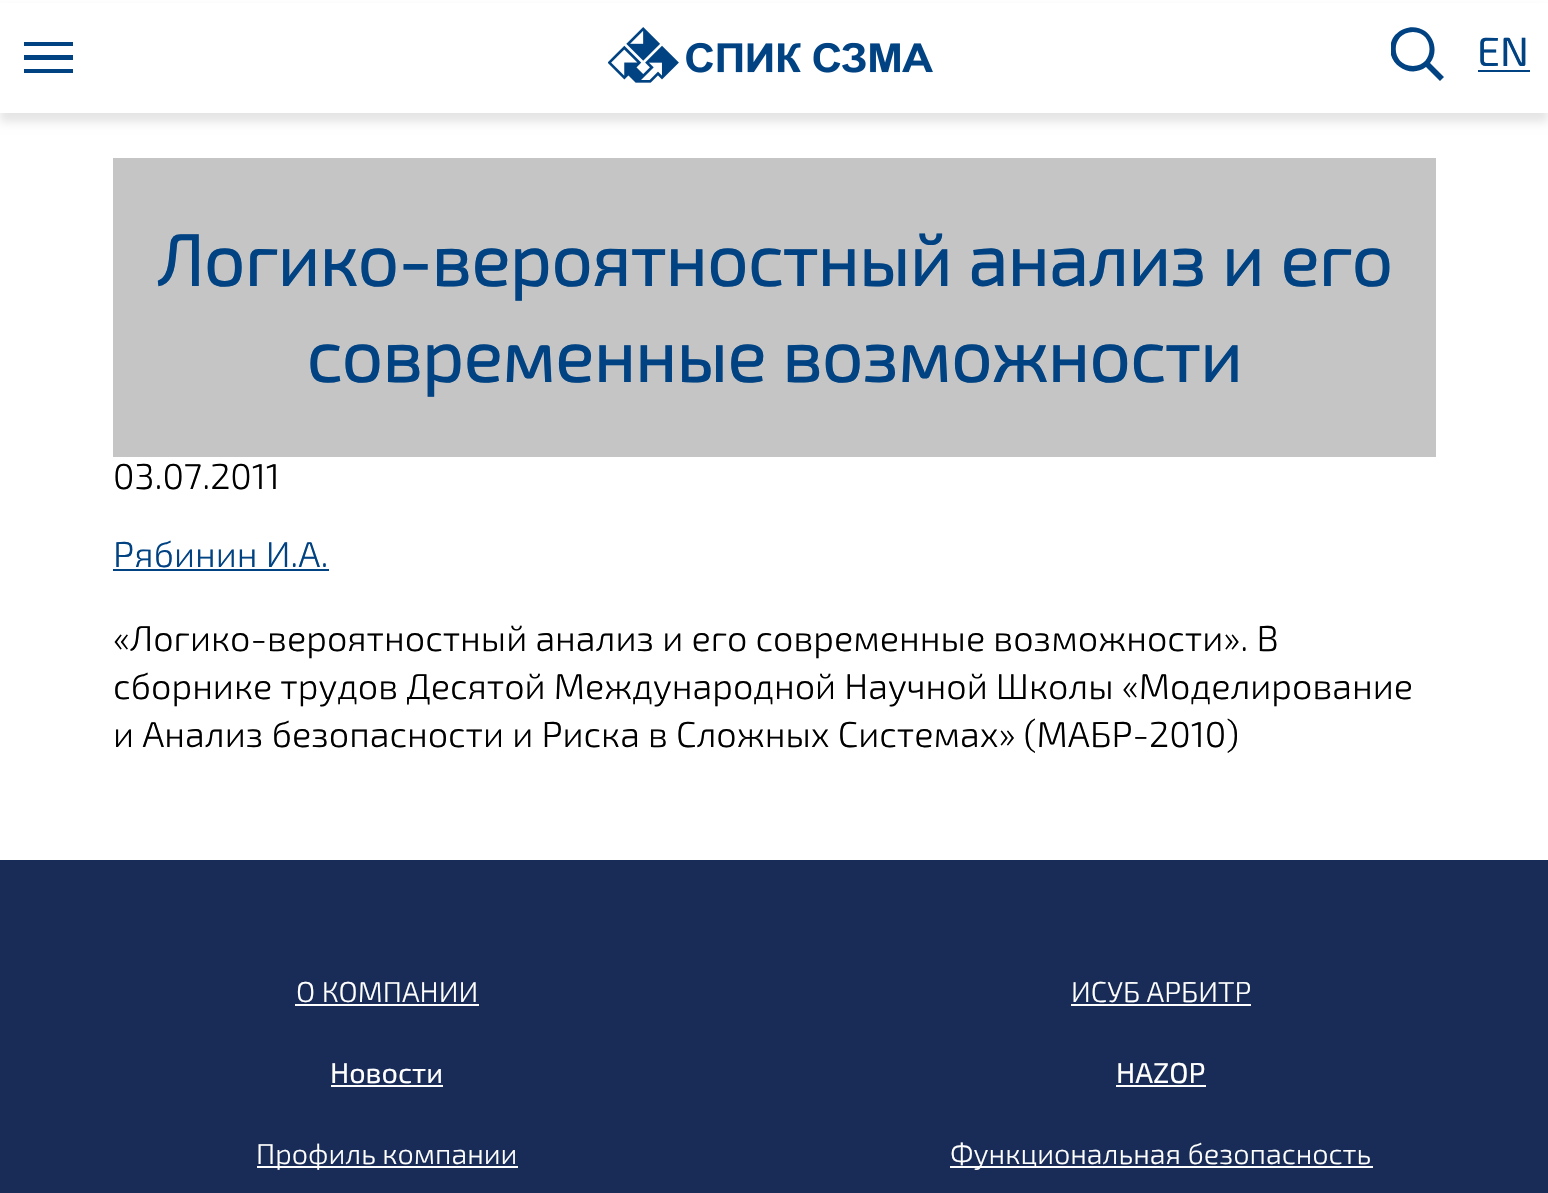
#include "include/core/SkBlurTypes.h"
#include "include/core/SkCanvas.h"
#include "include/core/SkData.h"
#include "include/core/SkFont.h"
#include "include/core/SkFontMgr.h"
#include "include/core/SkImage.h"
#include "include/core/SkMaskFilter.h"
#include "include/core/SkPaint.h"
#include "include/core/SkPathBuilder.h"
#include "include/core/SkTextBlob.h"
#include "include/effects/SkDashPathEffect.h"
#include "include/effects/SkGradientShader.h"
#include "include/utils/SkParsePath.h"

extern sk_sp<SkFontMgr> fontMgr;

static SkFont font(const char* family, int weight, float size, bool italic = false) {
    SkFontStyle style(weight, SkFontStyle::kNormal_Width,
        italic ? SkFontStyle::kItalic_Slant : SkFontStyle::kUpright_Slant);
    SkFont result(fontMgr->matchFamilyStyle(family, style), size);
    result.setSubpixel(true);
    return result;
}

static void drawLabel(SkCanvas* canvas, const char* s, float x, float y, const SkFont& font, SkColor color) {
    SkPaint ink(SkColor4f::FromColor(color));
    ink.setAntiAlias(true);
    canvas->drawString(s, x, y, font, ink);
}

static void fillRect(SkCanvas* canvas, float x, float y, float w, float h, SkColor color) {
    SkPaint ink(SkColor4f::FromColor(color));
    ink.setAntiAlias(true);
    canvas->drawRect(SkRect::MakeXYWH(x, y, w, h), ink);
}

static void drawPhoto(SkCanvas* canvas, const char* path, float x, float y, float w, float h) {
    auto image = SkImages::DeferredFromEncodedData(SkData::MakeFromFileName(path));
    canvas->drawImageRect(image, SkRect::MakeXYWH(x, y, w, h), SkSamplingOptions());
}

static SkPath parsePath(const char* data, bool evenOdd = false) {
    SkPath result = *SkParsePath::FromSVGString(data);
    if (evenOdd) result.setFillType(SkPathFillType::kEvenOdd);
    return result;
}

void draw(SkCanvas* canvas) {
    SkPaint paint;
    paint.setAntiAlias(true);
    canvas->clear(0xFFFFFFFF);
    paint.setColor(0x1A000000);
    paint.setMaskFilter(SkMaskFilter::MakeBlur(kNormal_SkBlurStyle, 4.5f));
    canvas->drawRect(SkRect::MakeXYWH(0, 9, 1548, 113), paint);
    paint.setMaskFilter(nullptr);
    fillRect(canvas, 0, 3, 1548, 110, 0xFFFFFFFF);
    paint.setColor(0xFF004282);
    canvas->drawPath(parsePath("M24 46V42H73V46ZM24 60V55H73V60ZM24 73V69H73V73Z"), paint);
    drawPhoto(canvas, "assets/img1.png", 608, 27, 325, 56);
    canvas->save();
    canvas->clipRect(SkRect::MakeXYWH(1391, 27, 56, 56));
    canvas->drawPath(parsePath("M1413 66C1435 66 1435 32 1413 32C1390 32 1390 66 1413 66ZM1430 63L1444 77L1440 81L1426 67C1409 80 1383 62 1392 40C1394 35 1399 31 1404 29C1411 26 1419 27 1425 31C1435 38 1438 53 1430 63Z"), paint);
    canvas->restore();
    SkFont font1 = font("Exo 2", 400, 41);
    drawLabel(canvas, "EN", 1477, 66, font1, 0xFF004282);
    fillRect(canvas, 1478, 70, 52, 2, 0xFF004282);
    fillRect(canvas, 113, 158, 1323, 299, 0xFFC5C5C5);
    SkFont font2 = font("Exo 2", 700, 72);
    drawLabel(canvas, "Логико-вероятностный анализ и его", 157, 286, font2, 0xFF004282);
    drawLabel(canvas, "современные возможности", 306, 382, font2, 0xFF004282);
    SkFont font3 = font("Exo 2", 300, 36);
    drawLabel(canvas, "03.07.2011", 113, 489, font3, 0xFF000000);
    drawLabel(canvas, "Рябинин И.А.", 113, 567, font3, 0xFF004282);
    fillRect(canvas, 113, 569, 216, 2, 0xFF004282);
    drawLabel(canvas, "«Логико-вероятностный анализ и его современные возможности». В", 113, 651, font3, 0xFF000000);
    drawLabel(canvas, "сборнике трудов Десятой Международной Научной Школы «Моделирование", 113, 699, font3, 0xFF000000);
    drawLabel(canvas, "и Анализ безопасности и Риска в Сложных Системах» (МАБР-2010)", 113, 747, font3, 0xFF000000);
    fillRect(canvas, 0, 860, 1548, 333, 0xFF182C57);
    SkFont font4 = font("Exo 2", 300, 28.75f);
    drawLabel(canvas, "О КОМПАНИИ", 296, 1002, font4, 0xFFFFFFFF);
    fillRect(canvas, 295, 1004, 184, 2, 0xFFFFFFFF);
    SkFont font5 = font("Exo 2", 400, 28.75f);
    drawLabel(canvas, "Новости", 330, 1083, font5, 0xFFFFFFFF);
    fillRect(canvas, 331, 1085, 112, 2, 0xFFFFFFFF);
    fillRect(canvas, 257, 1166, 261, 2, 0xFFFFFFFF);
    drawLabel(canvas, "Профиль компании", 256, 1164, font4, 0xFFFFFFFF);
    drawLabel(canvas, "ИСУБ АРБИТР", 1071, 1002, font4, 0xFFFFFFFF);
    fillRect(canvas, 1071, 1004, 180, 2, 0xFFFFFFFF);
    drawLabel(canvas, "HAZOP", 1116, 1083, font5, 0xFFFFFFFF);
    fillRect(canvas, 1116, 1085, 90, 2, 0xFFFFFFFF);
    fillRect(canvas, 950, 1166, 423, 2, 0xFFFFFFFF);
    drawLabel(canvas, "Функциональная безопасность", 950, 1164, font4, 0xFFFFFFFF);
}
